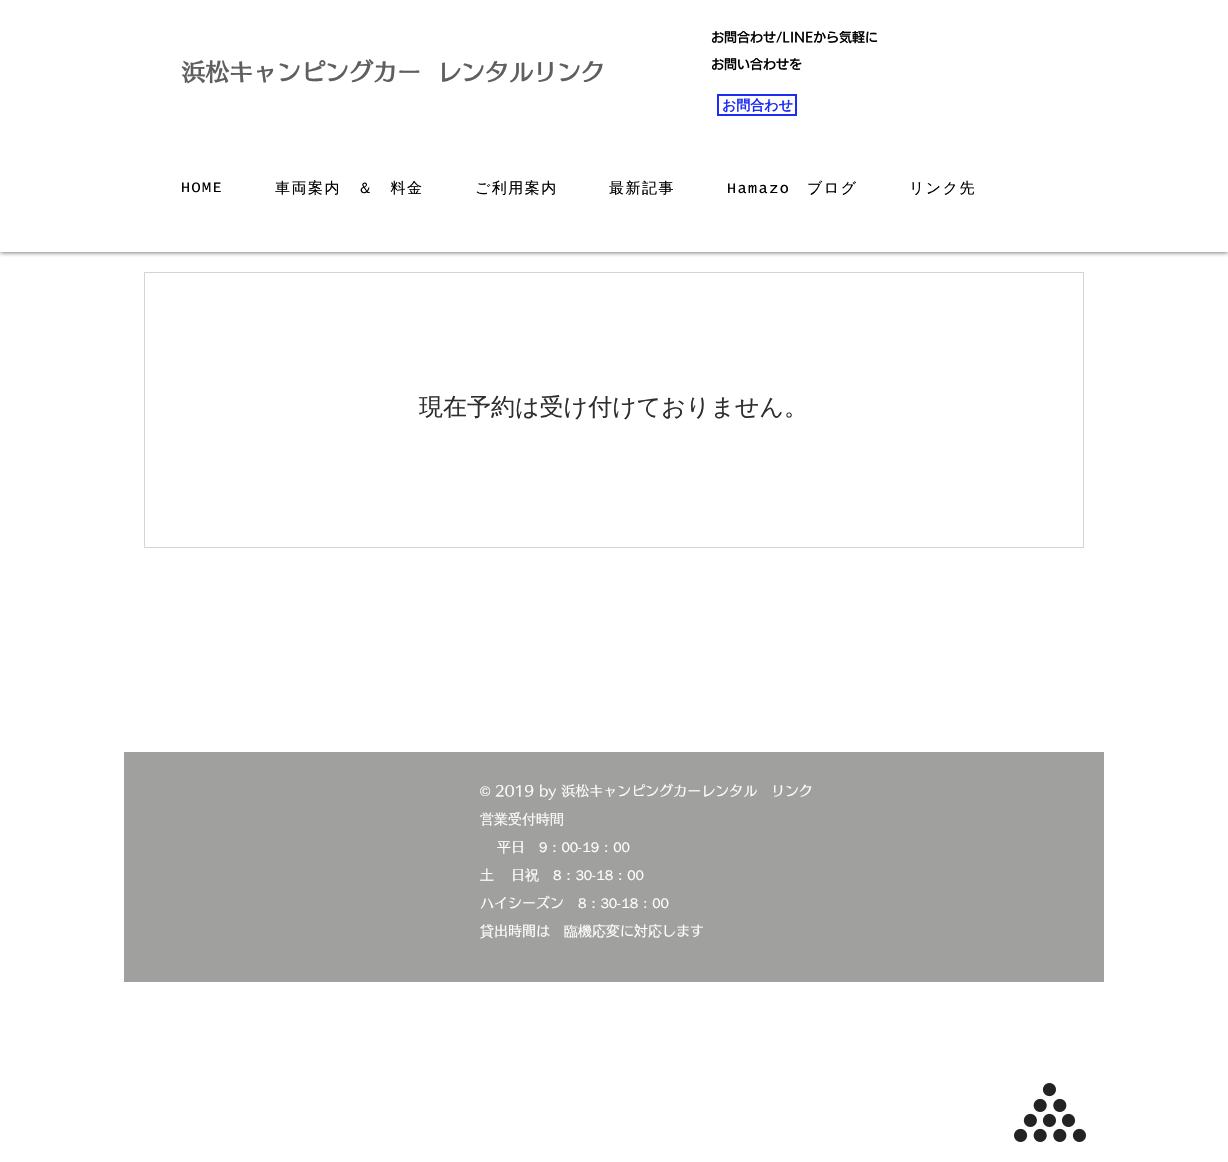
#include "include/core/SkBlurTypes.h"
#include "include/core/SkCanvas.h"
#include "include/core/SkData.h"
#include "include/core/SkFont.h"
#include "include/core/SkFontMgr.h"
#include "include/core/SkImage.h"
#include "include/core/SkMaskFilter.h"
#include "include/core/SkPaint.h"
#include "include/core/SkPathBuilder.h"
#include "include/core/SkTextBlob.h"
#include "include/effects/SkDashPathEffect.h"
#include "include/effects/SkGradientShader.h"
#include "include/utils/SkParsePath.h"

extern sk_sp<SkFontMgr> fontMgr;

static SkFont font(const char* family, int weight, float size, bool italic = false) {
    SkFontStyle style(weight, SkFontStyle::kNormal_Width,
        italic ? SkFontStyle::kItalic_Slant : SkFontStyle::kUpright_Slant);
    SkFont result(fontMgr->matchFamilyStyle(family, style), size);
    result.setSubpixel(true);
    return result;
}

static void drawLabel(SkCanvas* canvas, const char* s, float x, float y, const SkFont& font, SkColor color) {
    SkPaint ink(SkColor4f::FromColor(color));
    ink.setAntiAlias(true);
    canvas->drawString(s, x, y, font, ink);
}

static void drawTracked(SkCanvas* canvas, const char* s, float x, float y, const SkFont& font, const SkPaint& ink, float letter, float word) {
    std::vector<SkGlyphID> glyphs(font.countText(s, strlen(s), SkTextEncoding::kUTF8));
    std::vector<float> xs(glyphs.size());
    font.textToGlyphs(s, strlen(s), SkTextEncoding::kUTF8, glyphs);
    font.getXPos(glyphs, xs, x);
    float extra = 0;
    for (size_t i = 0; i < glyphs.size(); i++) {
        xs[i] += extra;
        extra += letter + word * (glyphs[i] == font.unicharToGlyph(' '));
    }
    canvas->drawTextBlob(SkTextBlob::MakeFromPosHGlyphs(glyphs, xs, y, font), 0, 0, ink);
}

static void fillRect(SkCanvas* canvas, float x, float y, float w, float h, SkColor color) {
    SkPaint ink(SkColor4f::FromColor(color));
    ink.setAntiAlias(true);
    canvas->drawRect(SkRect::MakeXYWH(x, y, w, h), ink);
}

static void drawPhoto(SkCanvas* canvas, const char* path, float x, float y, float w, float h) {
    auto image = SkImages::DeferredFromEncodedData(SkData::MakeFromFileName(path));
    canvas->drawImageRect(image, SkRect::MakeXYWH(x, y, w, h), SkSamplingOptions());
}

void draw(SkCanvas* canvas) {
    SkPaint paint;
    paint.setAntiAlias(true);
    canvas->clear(0xFFFFFFFF);
    canvas->save();
    canvas->clipRect(SkRect::MakeXYWH(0, 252, 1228, 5));
    paint.setColor(0xB3000000);
    paint.setMaskFilter(SkMaskFilter::MakeBlur(kNormal_SkBlurStyle, 2.5f));
    canvas->drawRect(SkRect::MakeXYWH(0, 0, 1228, 252), paint);
    paint.setMaskFilter(nullptr);
    canvas->restore();
    SkFont font1 = font("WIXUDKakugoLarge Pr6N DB", 600, 13);
    drawLabel(canvas, "お問合わせ/LINEから気軽に", 711, 42, font1, 0xFF000000);
    SkFont font2 = font("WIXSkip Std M", 700, 24);
    drawLabel(canvas, "浜松キャンピングカー", 181, 81, font2, 0xFF605E5E);
    drawLabel(canvas, "レンタル リンク", 437, 81, font2, 0xFF605E5E);
    drawLabel(canvas, "お問い合わせを", 711, 69, font1, 0xFF000000);
    paint.setStroke(true);
    paint.setStrokeWidth(2);
    paint.setColor(0xFF1D2CF3);
    canvas->drawRect(SkRect::MakeXYWH(718, 95, 78, 20), paint);
    SkFont font3 = font("WenQuanYi Zen Hei", 700, 14);
    drawLabel(canvas, "お問合わせ", 722, 110, font3, 0xFF1D2CF3);
    SkFont font4 = font("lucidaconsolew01", 400, 15);
    paint.setStroke(false);
    paint.setColor(0xFF000000);
    drawTracked(canvas, "HOME", 181, 192, font4, paint, 1.5f, 0);
    SkFont font5 = font("WenQuanYi Zen Hei", 500, 15);
    drawTracked(canvas, "車両案内　＆　料金", 275, 193, font5, paint, 1.5f, 0);
    drawTracked(canvas, "ご利用案内", 475, 193, font5, paint, 1.5f, 0);
    drawTracked(canvas, "最新記事", 609, 193, font5, paint, 1.5f, 0);
    drawTracked(canvas, "Hamazo", 727, 193, font4, paint, 1.5f, 0);
    drawTracked(canvas, "ブログ", 807, 193, font5, paint, 1.5f, 0);
    drawTracked(canvas, "リンク先", 909, 193, font5, paint, 1.5f, 0);
    paint.setStroke(true);
    paint.setStrokeWidth(1);
    paint.setColor(0xFFD5D5D5);
    canvas->drawRect(SkRect::MakeXYWH(144.5f, 272.5f, 939, 275), paint);
    SkFont font6 = font("WenQuanYi Zen Hei", 500, 24);
    drawLabel(canvas, "現在予約は受け付けておりません。", 419, 415, font6, 0xFF2F2E2E);
    fillRect(canvas, 124, 752, 980, 230, 0xFFA0A09F);
    SkFont font7 = font("Liberation Sans", 400, 14);
    drawLabel(canvas, "©", 480, 796, font7, 0xFFFFFFFF);
    SkFont font8 = font("WIXSkip Std M", 500, 14);
    drawLabel(canvas, "2019 by 浜松キャンピングカーレンタル", 495, 796, font8, 0xFFFFFFFF);
    drawLabel(canvas, "リンク", 771, 796, font8, 0xFFFFFFFF);
    SkFont font9 = font("WenQuanYi Zen Hei", 500, 14);
    drawLabel(canvas, "営業受付時間", 480, 824, font9, 0xFFFFFFFF);
    drawLabel(canvas, "平", 497, 852, font9, 0xFFFFFFFF);
    drawLabel(canvas, "日", 511, 852, font8, 0xFFFFFFFF);
    drawLabel(canvas, "9：00-19：00", 539, 852, font9, 0xFFFFFFFF);
    drawLabel(canvas, "土", 480, 880, font9, 0xFFFFFFFF);
    drawLabel(canvas, "日", 511, 880, font8, 0xFFFFFFFF);
    drawLabel(canvas, "祝　8：30-18：00", 525, 880, font9, 0xFFFFFFFF);
    drawLabel(canvas, "ハイシーズン", 480, 908, font8, 0xFFFFFFFF);
    drawLabel(canvas, "8：30-18：00", 578, 908, font9, 0xFFFFFFFF);
    drawLabel(canvas, "貸", 480, 936, font9, 0xFFFFFFFF);
    drawLabel(canvas, "出時間は", 494, 936, font8, 0xFFFFFFFF);
    drawLabel(canvas, "臨機応変", 564, 936, font9, 0xFFFFFFFF);
    drawLabel(canvas, "に", 620, 936, font8, 0xFFFFFFFF);
    drawLabel(canvas, "対応", 634, 936, font9, 0xFFFFFFFF);
    drawLabel(canvas, "します", 662, 936, font8, 0xFFFFFFFF);
    drawPhoto(canvas, "assets/img1.png", 1014, 1083, 72, 59);
}
